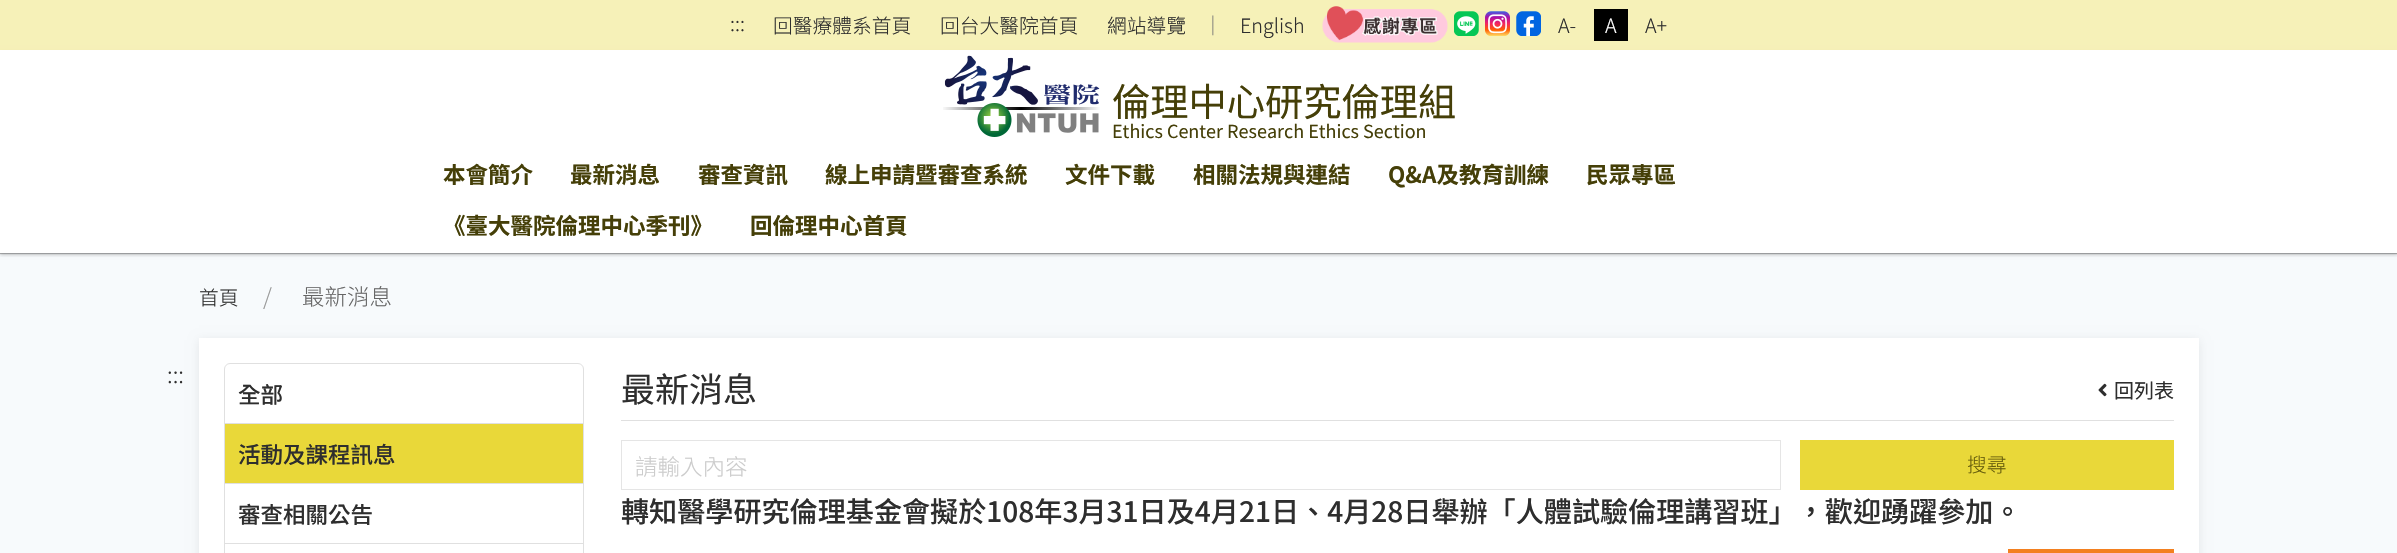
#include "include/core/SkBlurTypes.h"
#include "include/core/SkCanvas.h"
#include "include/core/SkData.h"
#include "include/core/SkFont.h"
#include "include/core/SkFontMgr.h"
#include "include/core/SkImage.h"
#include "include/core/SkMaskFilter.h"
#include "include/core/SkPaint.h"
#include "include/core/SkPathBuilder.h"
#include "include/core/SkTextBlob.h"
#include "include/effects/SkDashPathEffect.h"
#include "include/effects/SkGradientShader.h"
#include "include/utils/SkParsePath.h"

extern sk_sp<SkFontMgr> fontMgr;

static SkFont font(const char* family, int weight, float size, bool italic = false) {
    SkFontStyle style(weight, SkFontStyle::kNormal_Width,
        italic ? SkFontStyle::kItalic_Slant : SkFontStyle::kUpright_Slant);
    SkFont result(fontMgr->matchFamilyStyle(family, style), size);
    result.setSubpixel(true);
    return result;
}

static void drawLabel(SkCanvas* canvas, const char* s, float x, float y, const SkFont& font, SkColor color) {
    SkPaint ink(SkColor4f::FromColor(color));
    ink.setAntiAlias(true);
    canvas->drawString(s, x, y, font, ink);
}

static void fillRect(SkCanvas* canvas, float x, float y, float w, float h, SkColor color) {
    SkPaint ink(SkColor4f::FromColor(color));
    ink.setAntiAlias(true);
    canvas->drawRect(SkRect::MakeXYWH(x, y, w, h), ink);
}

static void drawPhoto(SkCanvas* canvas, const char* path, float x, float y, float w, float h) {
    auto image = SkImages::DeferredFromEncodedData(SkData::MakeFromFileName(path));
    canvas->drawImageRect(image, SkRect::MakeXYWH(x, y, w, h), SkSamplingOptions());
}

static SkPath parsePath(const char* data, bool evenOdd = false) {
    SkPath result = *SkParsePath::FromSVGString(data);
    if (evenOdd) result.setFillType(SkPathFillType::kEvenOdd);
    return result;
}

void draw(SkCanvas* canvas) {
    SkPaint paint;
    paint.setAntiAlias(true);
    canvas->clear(0xFFF7FAFC);
    canvas->save();
    canvas->clipRect(SkRect::MakeXYWH(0, 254, 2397, 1));
    paint.setColor(0x0F000000);
    paint.setMaskFilter(SkMaskFilter::MakeBlur(kNormal_SkBlurStyle, 1));
    canvas->drawRect(SkRect::MakeXYWH(0, 1, 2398, 254), paint);
    paint.setMaskFilter(nullptr);
    canvas->restore();
    canvas->save();
    canvas->clipRect(SkRect::MakeXYWH(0, 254, 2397, 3));
    paint.setColor(0x1A000000);
    paint.setMaskFilter(SkMaskFilter::MakeBlur(kNormal_SkBlurStyle, 2));
    canvas->drawRect(SkRect::MakeXYWH(0, 1, 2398, 254), paint);
    paint.setMaskFilter(nullptr);
    canvas->restore();
    canvas->save();
    canvas->clipPath(parsePath("M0 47H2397V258H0ZM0 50H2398V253H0Z", true), true);
    paint.setColor(0x0F000000);
    paint.setMaskFilter(SkMaskFilter::MakeBlur(kNormal_SkBlurStyle, 1));
    canvas->drawRect(SkRect::MakeXYWH(0, 51, 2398, 203), paint);
    paint.setMaskFilter(nullptr);
    canvas->restore();
    canvas->save();
    canvas->clipPath(parsePath("M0 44H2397V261H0ZM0 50H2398V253H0Z", true), true);
    paint.setColor(0x1A000000);
    paint.setMaskFilter(SkMaskFilter::MakeBlur(kNormal_SkBlurStyle, 2));
    canvas->drawRect(SkRect::MakeXYWH(0, 51, 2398, 203), paint);
    paint.setMaskFilter(nullptr);
    canvas->restore();
    fillRect(canvas, 0, 0, 2397, 50, 0xD9F6EFAC);
    SkFont font1 = font("Noto Sans TC", 300, 19.75f);
    drawLabel(canvas, ":::", 730, 31, font1, 0xFF2E2E2E);
    drawLabel(canvas, "回醫療體系首頁", 773, 33, font1, 0xFF2E2E2E);
    drawLabel(canvas, "回台大醫院首頁", 940, 33, font1, 0xFF2E2E2E);
    drawLabel(canvas, "網站導覽", 1107, 33, font1, 0xFF2E2E2E);
    drawLabel(canvas, "｜", 1203, 33, font1, 0xFF757575);
    drawLabel(canvas, "English", 1240, 33, font1, 0xFF2E2E2E);
    drawPhoto(canvas, "assets/img1.png", 1322, 6, 126, 37);
    drawPhoto(canvas, "assets/img2.png", 1454, 11, 25, 25);
    drawPhoto(canvas, "assets/img3.png", 1485, 11, 25, 25);
    drawPhoto(canvas, "assets/img4.png", 1516, 11, 25, 25);
    drawLabel(canvas, "A-", 1558, 33, font1, 0xFF2E2E2E);
    fillRect(canvas, 1594, 9, 34, 32, 0xFF000000);
    drawLabel(canvas, "A", 1605, 33, font1, 0xFFFFFFFF);
    drawLabel(canvas, "A+", 1645, 33, font1, 0xFF2E2E2E);
    fillRect(canvas, 0, 50, 2397, 203, 0xE6FFFFFF);
    drawPhoto(canvas, "assets/img5.png", 943, 55, 157, 82);
    SkFont font2 = font("Noto Sans TC", 400, 38.25f);
    drawLabel(canvas, "倫理中心研究倫理組", 1112, 116, font2, 0xFF453F08);
    SkFont font3 = font("Noto Sans TC", 400, 18);
    drawLabel(canvas, "Ethics Center Research Ethics Section", 1112, 138, font3, 0xFF453F08);
    SkFont font4 = font("Noto Sans TC", 700, 22.5f);
    drawLabel(canvas, "本會簡介", 443, 183, font4, 0xFF453F08);
    drawLabel(canvas, "最新消息", 570, 183, font4, 0xFF453F08);
    drawLabel(canvas, "審查資訊", 698, 183, font4, 0xFF453F08);
    drawLabel(canvas, "線上申請暨審查系統", 825, 183, font4, 0xFF453F08);
    drawLabel(canvas, "文件下載", 1065, 183, font4, 0xFF453F08);
    drawLabel(canvas, "相關法規與連結", 1193, 183, font4, 0xFF453F08);
    drawLabel(canvas, "Q&A及教育訓練", 1388, 183, font4, 0xFF453F08);
    drawLabel(canvas, "民眾專區", 1586, 183, font4, 0xFF453F08);
    drawLabel(canvas, "《臺大醫院倫理中心季刊》", 443, 234, font4, 0xFF453F08);
    drawLabel(canvas, "回倫理中心首頁", 750, 234, font4, 0xFF453F08);
    fillRect(canvas, 0, 253, 2397, 1, 0x4D000000);
    drawLabel(canvas, "首頁", 199, 305, font1, 0xFF2E2E2E);
    SkFont font5 = font("Noto Sans TC", 300, 22.5f);
    drawLabel(canvas, "/", 263, 305, font5, 0xFF999999);
    drawLabel(canvas, "最新消息", 302, 305, font5, 0xFF666666);
    drawLabel(canvas, ":::", 167, 383, font5, 0xFF2E2E2E);
    paint.setColor(0x14000000);
    paint.setMaskFilter(SkMaskFilter::MakeBlur(kNormal_SkBlurStyle, 5));
    canvas->drawRect(SkRect::MakeXYWH(199, 340, 2000, 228), paint);
    paint.setMaskFilter(nullptr);
    fillRect(canvas, 199, 338, 2000, 215, 0xFFFFFFFF);
    paint.setStroke(true);
    paint.setStrokeWidth(1);
    paint.setColor(0xFFE0E0E0);
    canvas->drawPath(parsePath("M230 363.5H578C581 363.5 583.5 366 583.5 369V423.5H224.5V369C224.5 366 227 363.5 230 363.5Z"), paint);
    SkFont font6 = font("Noto Sans TC", 500, 22.5f);
    drawLabel(canvas, "全部", 238, 403, font6, 0xFF2E2E2E);
    canvas->drawRect(SkRect::MakeXYWH(224.5f, 423.5f, 359, 60), paint);
    fillRect(canvas, 225, 424, 358, 59, 0xFFE9D839);
    drawLabel(canvas, "活動及課程訊息", 238, 463, font6, 0xFF2E2E2E);
    canvas->drawRect(SkRect::MakeXYWH(224.5f, 483.5f, 359, 60), paint);
    drawLabel(canvas, "審查相關公告", 238, 523, font6, 0xFF2E2E2E);
    canvas->drawRect(SkRect::MakeXYWH(224.5f, 543.5f, 359, 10), paint);
    fillRect(canvas, 621, 420, 1553, 1, 0xFFE0E0E0);
    SkFont font7 = font("Noto Sans TC", 400, 34);
    drawLabel(canvas, "最新消息", 621, 402, font7, 0xFF2E2E2E);
    drawPhoto(canvas, "assets/img6.png", 2098, 383, 9, 14);
    SkFont font8 = font("Noto Sans TC", 400, 20);
    drawLabel(canvas, "回列表", 2114, 398, font8, 0xFF2E2E2E);
    paint.setColor(0xFFE5E5E5);
    canvas->drawRect(SkRect::MakeXYWH(621.5f, 440.5f, 1159, 49), paint);
    drawLabel(canvas, "請輸入內容", 635, 475, font5, 0xFFCCCCCC);
    fillRect(canvas, 1800, 440, 374, 50, 0xFFE9D839);
    drawLabel(canvas, "搜尋", 1967, 472, font1, 0xFF655C0B);
    SkFont font9 = font("Noto Sans TC", 500, 28.1f);
    drawLabel(canvas, "轉知醫學研究倫理基金會擬於108年3月31日及4月21日、4月28日舉辦「人體試驗倫理講習班」，歡迎踴躍參加。", 621, 522, font9, 0xFF2E2E2E);
    fillRect(canvas, 2008, 549, 166, 4, 0xFFF38020);
}
